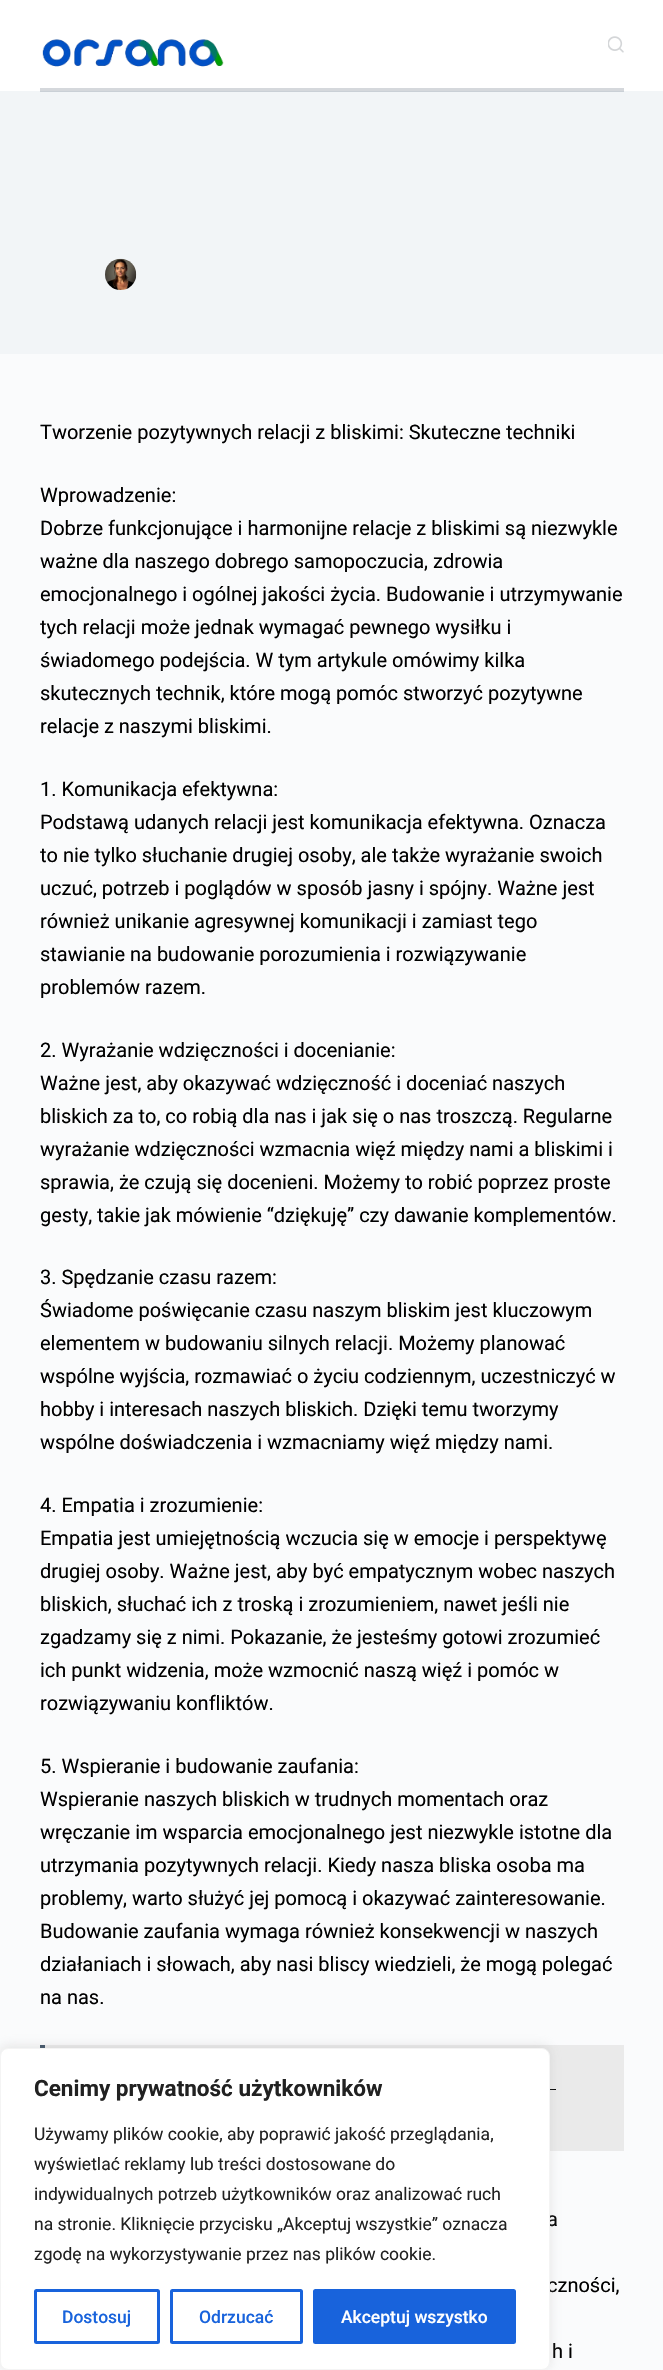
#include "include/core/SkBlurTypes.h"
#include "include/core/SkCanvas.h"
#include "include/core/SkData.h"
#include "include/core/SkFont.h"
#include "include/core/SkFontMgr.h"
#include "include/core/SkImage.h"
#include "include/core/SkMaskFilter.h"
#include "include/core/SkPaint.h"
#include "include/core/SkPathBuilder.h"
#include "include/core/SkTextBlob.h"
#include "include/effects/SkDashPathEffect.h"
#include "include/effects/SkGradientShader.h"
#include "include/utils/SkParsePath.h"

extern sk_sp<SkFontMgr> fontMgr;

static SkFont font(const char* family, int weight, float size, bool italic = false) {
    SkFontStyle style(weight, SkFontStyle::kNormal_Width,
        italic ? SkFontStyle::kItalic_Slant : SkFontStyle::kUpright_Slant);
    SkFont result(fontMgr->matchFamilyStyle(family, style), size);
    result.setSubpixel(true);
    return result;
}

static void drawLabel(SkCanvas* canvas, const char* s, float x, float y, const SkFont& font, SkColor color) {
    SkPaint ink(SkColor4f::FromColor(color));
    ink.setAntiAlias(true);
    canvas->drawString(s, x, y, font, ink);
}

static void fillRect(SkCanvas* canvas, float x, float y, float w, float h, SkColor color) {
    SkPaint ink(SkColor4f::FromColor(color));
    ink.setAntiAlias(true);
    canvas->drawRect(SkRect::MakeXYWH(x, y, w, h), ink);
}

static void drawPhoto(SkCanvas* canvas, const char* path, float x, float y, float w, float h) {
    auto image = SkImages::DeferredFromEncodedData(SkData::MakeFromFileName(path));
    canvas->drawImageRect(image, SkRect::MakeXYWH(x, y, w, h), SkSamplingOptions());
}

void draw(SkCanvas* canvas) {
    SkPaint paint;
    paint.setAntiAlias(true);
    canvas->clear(0xFFFAFBFC);
    fillRect(canvas, 0, 0, 663, 91, 0xFFFFFFFF);
    fillRect(canvas, 40, 88, 584, 3, 0xFFD5D8DC);
    drawPhoto(canvas, "assets/img1.png", 42, 39, 182, 28);
    drawPhoto(canvas, "assets/img2.png", 608, 36, 16, 17);
    fillRect(canvas, 0, 91, 663, 263, 0xFFF2F5F7);
    fillRect(canvas, 40, 91, 584, 1, 0xFFCAD0D6);
    drawPhoto(canvas, "assets/img3.png", 105, 258, 32, 32);
    SkFont font1 = font("Roboto", 400, 20);
    drawLabel(canvas, "Tworzenie pozytywnych relacji z bliskimi: Skuteczne techniki", 40, 439, font1, 0xFF000000);
    drawLabel(canvas, "Wprowadzenie:", 40, 502, font1, 0xFF000000);
    drawLabel(canvas, "Dobrze funkcjonujące i harmonijne relacje z bliskimi są niezwykle", 40, 535, font1, 0xFF000000);
    drawLabel(canvas, "ważne dla naszego dobrego samopoczucia, zdrowia", 40, 568, font1, 0xFF000000);
    drawLabel(canvas, "emocjonalnego i ogólnej jakości życia. Budowanie i utrzymywanie", 40, 601, font1, 0xFF000000);
    drawLabel(canvas, "tych relacji może jednak wymagać pewnego wysiłku i", 40, 634, font1, 0xFF000000);
    drawLabel(canvas, "świadomego podejścia. W tym artykule omówimy kilka", 40, 667, font1, 0xFF000000);
    drawLabel(canvas, "skutecznych technik, które mogą pomóc stworzyć pozytywne", 40, 700, font1, 0xFF000000);
    drawLabel(canvas, "relacje z naszymi bliskimi.", 40, 733, font1, 0xFF000000);
    drawLabel(canvas, "1. Komunikacja efektywna:", 40, 796, font1, 0xFF000000);
    drawLabel(canvas, "Podstawą udanych relacji jest komunikacja efektywna. Oznacza", 40, 829, font1, 0xFF000000);
    drawLabel(canvas, "to nie tylko słuchanie drugiej osoby, ale także wyrażanie swoich", 40, 862, font1, 0xFF000000);
    drawLabel(canvas, "uczuć, potrzeb i poglądów w sposób jasny i spójny. Ważne jest", 40, 895, font1, 0xFF000000);
    drawLabel(canvas, "również unikanie agresywnej komunikacji i zamiast tego", 40, 928, font1, 0xFF000000);
    drawLabel(canvas, "stawianie na budowanie porozumienia i rozwiązywanie", 40, 961, font1, 0xFF000000);
    drawLabel(canvas, "problemów razem.", 40, 994, font1, 0xFF000000);
    drawLabel(canvas, "2. Wyrażanie wdzięczności i docenianie:", 40, 1057, font1, 0xFF000000);
    drawLabel(canvas, "Ważne jest, aby okazywać wdzięczność i doceniać naszych", 40, 1090, font1, 0xFF000000);
    drawLabel(canvas, "bliskich za to, co robią dla nas i jak się o nas troszczą. Regularne", 40, 1123, font1, 0xFF000000);
    drawLabel(canvas, "wyrażanie wdzięczności wzmacnia więź między nami a bliskimi i", 40, 1156, font1, 0xFF000000);
    drawLabel(canvas, "sprawia, że czują się docenieni. Możemy to robić poprzez proste", 40, 1189, font1, 0xFF000000);
    drawLabel(canvas, "gesty, takie jak mówienie “dziękuję” czy dawanie komplementów.", 40, 1222, font1, 0xFF000000);
    drawLabel(canvas, "3. Spędzanie czasu razem:", 40, 1284, font1, 0xFF000000);
    drawLabel(canvas, "Świadome poświęcanie czasu naszym bliskim jest kluczowym", 40, 1317, font1, 0xFF000000);
    drawLabel(canvas, "elementem w budowaniu silnych relacji. Możemy planować", 40, 1350, font1, 0xFF000000);
    drawLabel(canvas, "wspólne wyjścia, rozmawiać o życiu codziennym, uczestniczyć w", 40, 1383, font1, 0xFF000000);
    drawLabel(canvas, "hobby i interesach naszych bliskich. Dzięki temu tworzymy", 40, 1416, font1, 0xFF000000);
    drawLabel(canvas, "wspólne doświadczenia i wzmacniamy więź między nami.", 40, 1449, font1, 0xFF000000);
    drawLabel(canvas, "4. Empatia i zrozumienie:", 40, 1512, font1, 0xFF000000);
    drawLabel(canvas, "Empatia jest umiejętnością wczucia się w emocje i perspektywę", 40, 1545, font1, 0xFF000000);
    drawLabel(canvas, "drugiej osoby. Ważne jest, aby być empatycznym wobec naszych", 40, 1578, font1, 0xFF000000);
    drawLabel(canvas, "bliskich, słuchać ich z troską i zrozumieniem, nawet jeśli nie", 40, 1611, font1, 0xFF000000);
    drawLabel(canvas, "zgadzamy się z nimi. Pokazanie, że jesteśmy gotowi zrozumieć", 40, 1644, font1, 0xFF000000);
    drawLabel(canvas, "ich punkt widzenia, może wzmocnić naszą więź i pomóc w", 40, 1677, font1, 0xFF000000);
    drawLabel(canvas, "rozwiązywaniu konfliktów.", 40, 1710, font1, 0xFF000000);
    drawLabel(canvas, "5. Wspieranie i budowanie zaufania:", 40, 1773, font1, 0xFF000000);
    drawLabel(canvas, "Wspieranie naszych bliskich w trudnych momentach oraz", 40, 1806, font1, 0xFF000000);
    drawLabel(canvas, "wręczanie im wsparcia emocjonalnego jest niezwykle istotne dla", 40, 1839, font1, 0xFF000000);
    drawLabel(canvas, "utrzymania pozytywnych relacji. Kiedy nasza bliska osoba ma", 40, 1872, font1, 0xFF000000);
    drawLabel(canvas, "problemy, warto służyć jej pomocą i okazywać zainteresowanie.", 40, 1905, font1, 0xFF000000);
    drawLabel(canvas, "Budowanie zaufania wymaga również konsekwencji w naszych", 40, 1938, font1, 0xFF000000);
    drawLabel(canvas, "działaniach i słowach, aby nasi bliscy wiedzieli, że mogą polegać", 40, 1971, font1, 0xFF000000);
    drawLabel(canvas, "na nas.", 40, 2004, font1, 0xFF000000);
    fillRect(canvas, 45, 2045, 579, 106, 0xFFEAEAEA);
    fillRect(canvas, 40, 2045, 5, 3, 0xFF34495E);
    fillRect(canvas, 550, 2089, 6, 1, 0xFF000000);
    drawLabel(canvas, "a", 547, 2226, font1, 0xFF000000);
    drawLabel(canvas, "czności,", 547, 2292, font1, 0xFF000000);
    drawLabel(canvas, "h i", 552, 2358, font1, 0xFF000000);
    paint.setColor(0x4DACABAB);
    paint.setMaskFilter(SkMaskFilter::MakeBlur(kNormal_SkBlurStyle, 6));
    canvas->drawRoundRect(SkRect::MakeXYWH(0, 2046, 550, 323), 8, 8, paint);
    paint.setMaskFilter(nullptr);
    paint.setColor(0xFFFFFFFF);
    canvas->drawRoundRect(SkRect::MakeXYWH(0.5f, 2048.5f, 549, 321), 7.5f, 7.5f, paint);
    paint.setStroke(true);
    paint.setStrokeWidth(1);
    paint.setColor(0xFFF4F4F4);
    canvas->drawRoundRect(SkRect::MakeXYWH(0.5f, 2048.5f, 549, 321), 7.5f, 7.5f, paint);
    SkFont font2 = font("Roboto", 700, 22.5f);
    drawLabel(canvas, "Cenimy prywatność użytkowników", 34, 2096, font2, 0xFF212121);
    SkFont font3 = font("Roboto", 400, 17.5f);
    drawLabel(canvas, "Używamy plików cookie, aby poprawić jakość przeglądania,", 34, 2140, font3, 0xFF212121);
    drawLabel(canvas, "wyświetlać reklamy lub treści dostosowane do", 34, 2170, font3, 0xFF212121);
    drawLabel(canvas, "indywidualnych potrzeb użytkowników oraz analizować ruch", 34, 2200, font3, 0xFF212121);
    drawLabel(canvas, "na stronie. Kliknięcie przycisku „Akceptuj wszystkie” oznacza", 34, 2230, font3, 0xFF212121);
    drawLabel(canvas, "zgodę na wykorzystywanie przez nas plików cookie.", 34, 2260, font3, 0xFF212121);
    paint.setStrokeWidth(3);
    paint.setColor(0xFF1863DC);
    canvas->drawRoundRect(SkRect::MakeXYWH(35.5f, 2290.5f, 123, 52), 1, 1, paint);
    SkFont font4 = font("Roboto", 500, 17.5f);
    drawLabel(canvas, "Dostosuj", 62, 2323, font4, 0xFF1863DC);
    canvas->drawRoundRect(SkRect::MakeXYWH(171.5f, 2290.5f, 130, 52), 1, 1, paint);
    drawLabel(canvas, "Odrzucać", 199, 2323, font4, 0xFF1863DC);
    paint.setStroke(false);
    canvas->drawRoundRect(SkRect::MakeXYWH(314.5f, 2290.5f, 200, 52), 1, 1, paint);
    paint.setStroke(true);
    canvas->drawRoundRect(SkRect::MakeXYWH(314.5f, 2290.5f, 200, 52), 1, 1, paint);
    drawLabel(canvas, "Akceptuj wszystko", 341, 2323, font4, 0xFFFFFFFF);
}
